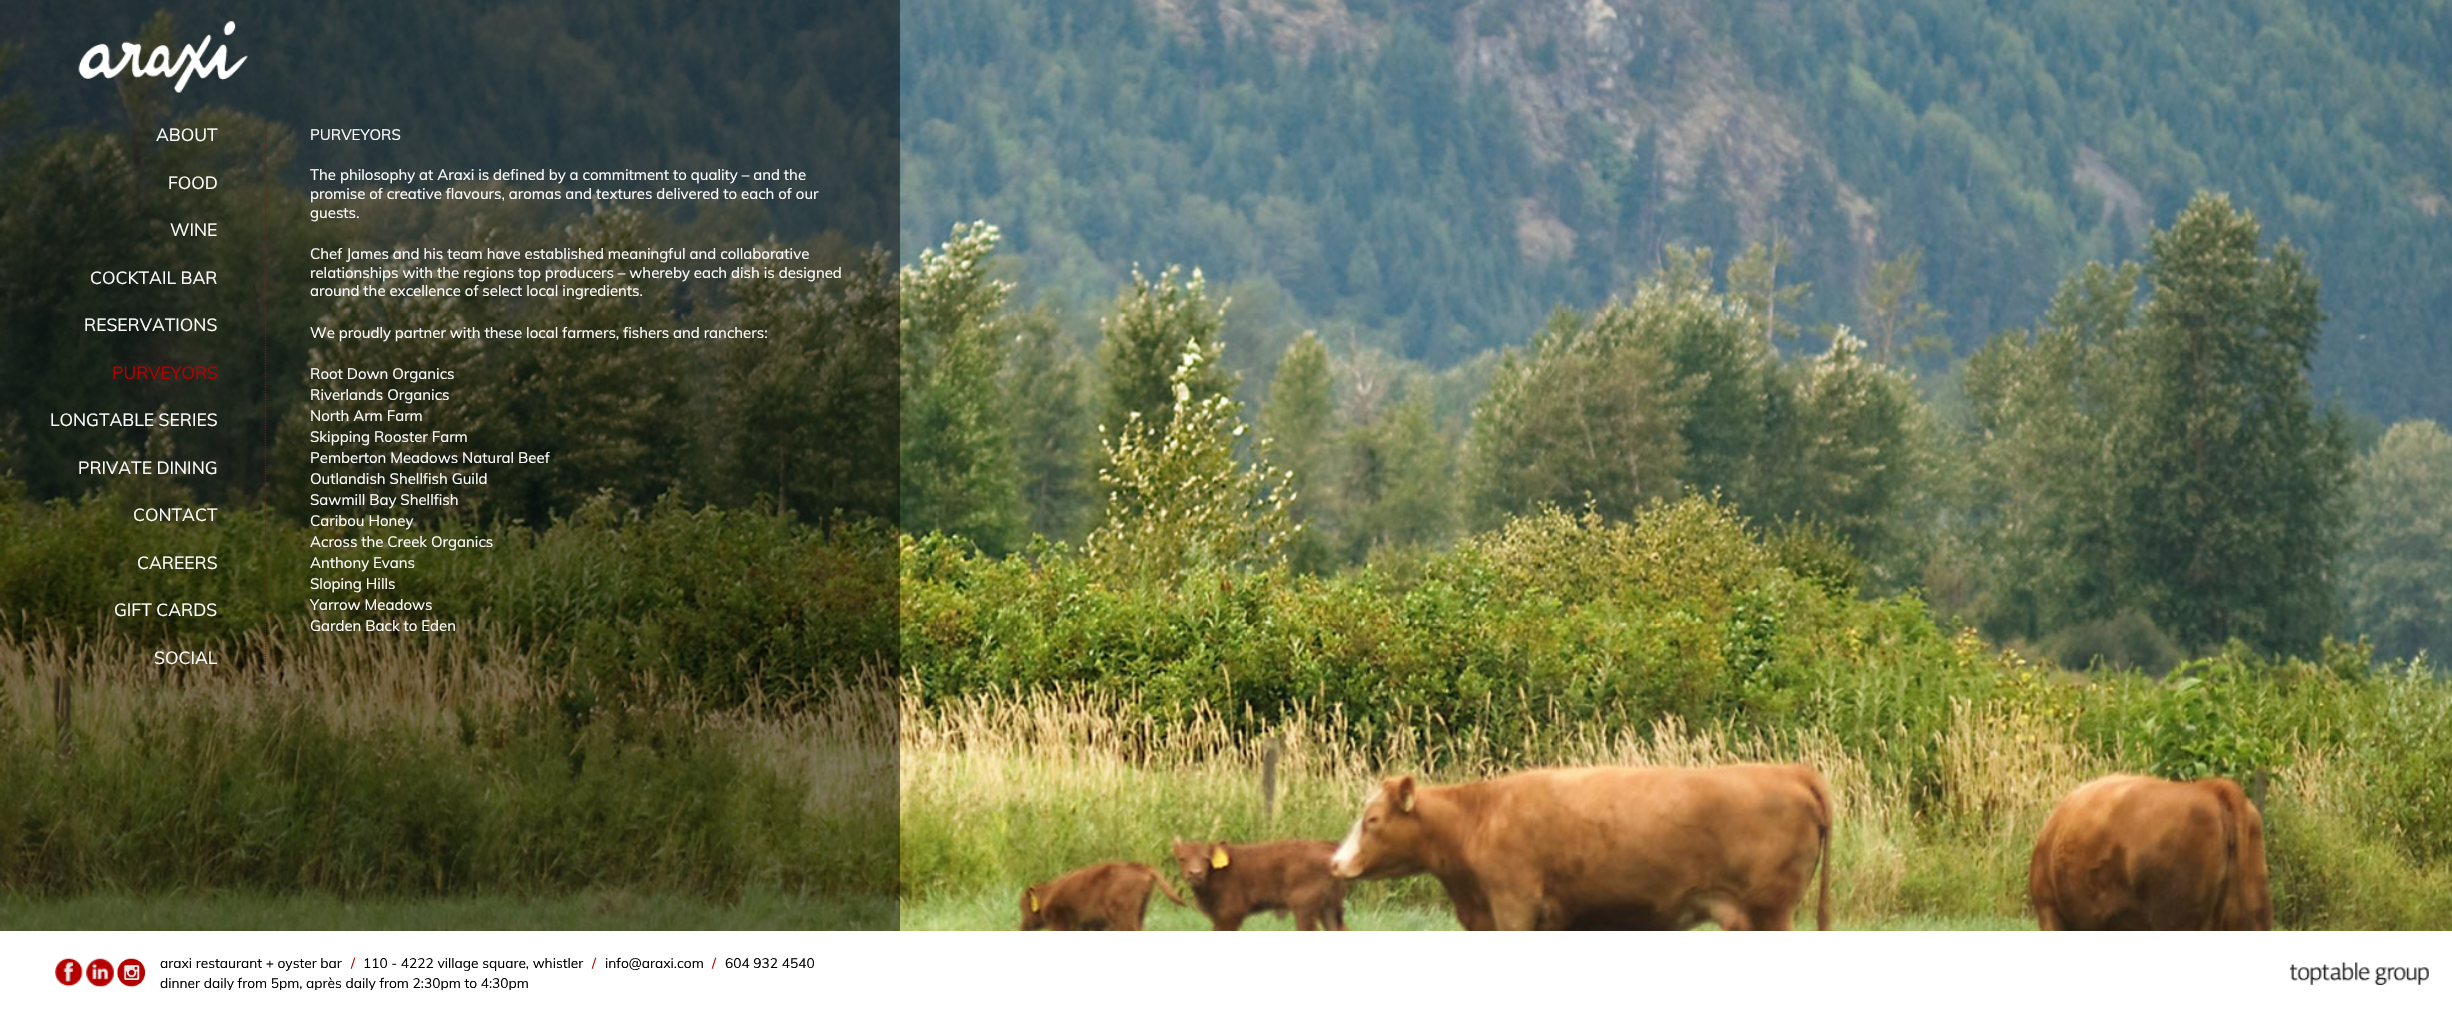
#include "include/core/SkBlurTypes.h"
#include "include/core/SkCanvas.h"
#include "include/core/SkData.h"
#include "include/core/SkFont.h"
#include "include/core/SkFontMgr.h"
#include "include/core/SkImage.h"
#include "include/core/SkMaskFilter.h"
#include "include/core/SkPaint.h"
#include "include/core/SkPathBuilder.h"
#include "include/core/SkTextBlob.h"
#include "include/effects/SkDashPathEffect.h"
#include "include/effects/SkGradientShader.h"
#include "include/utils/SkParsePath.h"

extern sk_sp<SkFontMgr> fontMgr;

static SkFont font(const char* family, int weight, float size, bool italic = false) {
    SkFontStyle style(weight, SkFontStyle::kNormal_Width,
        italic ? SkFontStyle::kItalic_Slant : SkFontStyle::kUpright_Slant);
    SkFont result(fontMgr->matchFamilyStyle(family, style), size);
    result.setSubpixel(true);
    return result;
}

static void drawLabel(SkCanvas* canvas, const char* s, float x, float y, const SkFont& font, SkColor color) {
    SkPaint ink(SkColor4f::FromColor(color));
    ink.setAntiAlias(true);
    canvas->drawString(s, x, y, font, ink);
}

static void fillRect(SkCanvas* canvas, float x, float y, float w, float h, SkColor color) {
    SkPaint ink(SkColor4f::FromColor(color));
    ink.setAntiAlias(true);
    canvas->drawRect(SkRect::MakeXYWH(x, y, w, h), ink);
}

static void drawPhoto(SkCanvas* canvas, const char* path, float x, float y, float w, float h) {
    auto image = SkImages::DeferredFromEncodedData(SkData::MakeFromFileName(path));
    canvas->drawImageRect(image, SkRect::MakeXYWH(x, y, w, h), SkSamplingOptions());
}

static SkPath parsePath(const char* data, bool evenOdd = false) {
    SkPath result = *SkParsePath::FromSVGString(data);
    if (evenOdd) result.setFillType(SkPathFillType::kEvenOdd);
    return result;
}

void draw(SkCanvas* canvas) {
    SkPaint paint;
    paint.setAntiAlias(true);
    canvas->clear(0xFFFFFFFF);
    drawPhoto(canvas, "assets/img1.png", 0, 0, 2452, 931);
    fillRect(canvas, 0, 0, 900, 931, 0x80000000);
    drawPhoto(canvas, "assets/img2.png", 78, 21, 170, 72);
    paint.setStroke(true);
    paint.setStrokeWidth(1.2f);
    paint.setColor(0xFFB60000);
    paint.setPathEffect(SkDashPathEffect::Make({{1.25f, 1.25f}}, 0));
    canvas->drawPath(parsePath("M265.5 126V666"), paint);
    paint.setPathEffect(nullptr);
    SkFont font1 = font("Muli", 400, 17.5f);
    drawLabel(canvas, "ABOUT", 156, 141, font1, 0xFFFFFFFF);
    drawLabel(canvas, "FOOD", 168, 189, font1, 0xFFFFFFFF);
    drawLabel(canvas, "WINE", 170, 236, font1, 0xFFFFFFFF);
    drawLabel(canvas, "COCKTAIL BAR", 90, 284, font1, 0xFFFFFFFF);
    drawLabel(canvas, "RESERVATIONS", 84, 331, font1, 0xFFFFFFFF);
    drawLabel(canvas, "PURVEYORS", 112, 379, font1, 0xFFB60000);
    drawLabel(canvas, "LONGTABLE SERIES", 50, 426, font1, 0xFFFFFFFF);
    drawLabel(canvas, "PRIVATE DINING", 78, 474, font1, 0xFFFFFFFF);
    drawLabel(canvas, "CONTACT", 133, 521, font1, 0xFFFFFFFF);
    drawLabel(canvas, "CAREERS", 137, 569, font1, 0xFFFFFFFF);
    drawLabel(canvas, "GIFT CARDS", 114, 616, font1, 0xFFFFFFFF);
    drawLabel(canvas, "SOCIAL", 154, 664, font1, 0xFFFFFFFF);
    SkFont font2 = font("Muli", 400, 15);
    drawLabel(canvas, "PURVEYORS", 310, 140, font2, 0xFFFFFFFF);
    drawLabel(canvas, "The philosophy at Araxi is defined by a commitment to quality – and the", 310, 180, font2, 0xFFFFFFFF);
    drawLabel(canvas, "promise of creative flavours, aromas and textures delivered to each of our", 310, 199, font2, 0xFFFFFFFF);
    drawLabel(canvas, "guests.", 310, 218, font2, 0xFFFFFFFF);
    drawLabel(canvas, "Chef James and his team have established meaningful and collaborative", 310, 259, font2, 0xFFFFFFFF);
    drawLabel(canvas, "relationships with the regions top producers – whereby each dish is designed", 310, 278, font2, 0xFFFFFFFF);
    drawLabel(canvas, "around the excellence of select local ingredients.", 310, 296, font2, 0xFFFFFFFF);
    drawLabel(canvas, "We proudly partner with these local farmers, fishers and ranchers:", 310, 338, font2, 0xFFFFFFFF);
    drawLabel(canvas, "Root Down Organics", 310, 379, font2, 0xFFFFFFFF);
    drawLabel(canvas, "Riverlands Organics", 310, 400, font2, 0xFFFFFFFF);
    drawLabel(canvas, "North Arm Farm", 310, 421, font2, 0xFFFFFFFF);
    drawLabel(canvas, "Skipping Rooster Farm", 310, 442, font2, 0xFFFFFFFF);
    drawLabel(canvas, "Pemberton Meadows Natural Beef", 310, 463, font2, 0xFFFFFFFF);
    drawLabel(canvas, "Outlandish Shellfish Guild", 310, 484, font2, 0xFFFFFFFF);
    drawLabel(canvas, "Sawmill Bay Shellfish", 310, 505, font2, 0xFFFFFFFF);
    drawLabel(canvas, "Caribou Honey", 310, 526, font2, 0xFFFFFFFF);
    drawLabel(canvas, "Across the Creek Organics", 310, 547, font2, 0xFFFFFFFF);
    drawLabel(canvas, "Anthony Evans", 310, 568, font2, 0xFFFFFFFF);
    drawLabel(canvas, "Sloping Hills", 310, 589, font2, 0xFFFFFFFF);
    drawLabel(canvas, "Yarrow Meadows", 310, 610, font2, 0xFFFFFFFF);
    drawLabel(canvas, "Garden Back to Eden", 310, 631, font2, 0xFFFFFFFF);
    drawPhoto(canvas, "assets/img3.png", 55, 958, 28, 29);
    drawPhoto(canvas, "assets/img4.png", 86, 958, 28, 29);
    drawPhoto(canvas, "assets/img5.png", 117, 958, 28, 29);
    SkFont font3 = font("Muli", 400, 13.75f);
    drawLabel(canvas, "araxi restaurant + oyster bar", 160, 968, font3, 0xFF000000);
    drawLabel(canvas, "/", 351, 968, font3, 0xFFB60000);
    drawLabel(canvas, "110 - 4222 village square, whistler", 363, 968, font3, 0xFF000000);
    drawLabel(canvas, "/", 592, 968, font3, 0xFFB60000);
    drawLabel(canvas, "info@araxi.com", 605, 968, font3, 0xFF000000);
    drawLabel(canvas, "/", 712, 968, font3, 0xFFB60000);
    drawLabel(canvas, "604 932 4540", 725, 968, font3, 0xFF000000);
    canvas->save();
    canvas->clipRect(SkRect::MakeXYWH(0, 931, 815, 59));
    drawLabel(canvas, "dinner daily from 5pm, après daily from 2:30pm to 4:30pm", 160, 988, font3, 0xFF000000);
    canvas->restore();
    drawPhoto(canvas, "assets/img6.png", 2290, 962, 139, 23);
}
